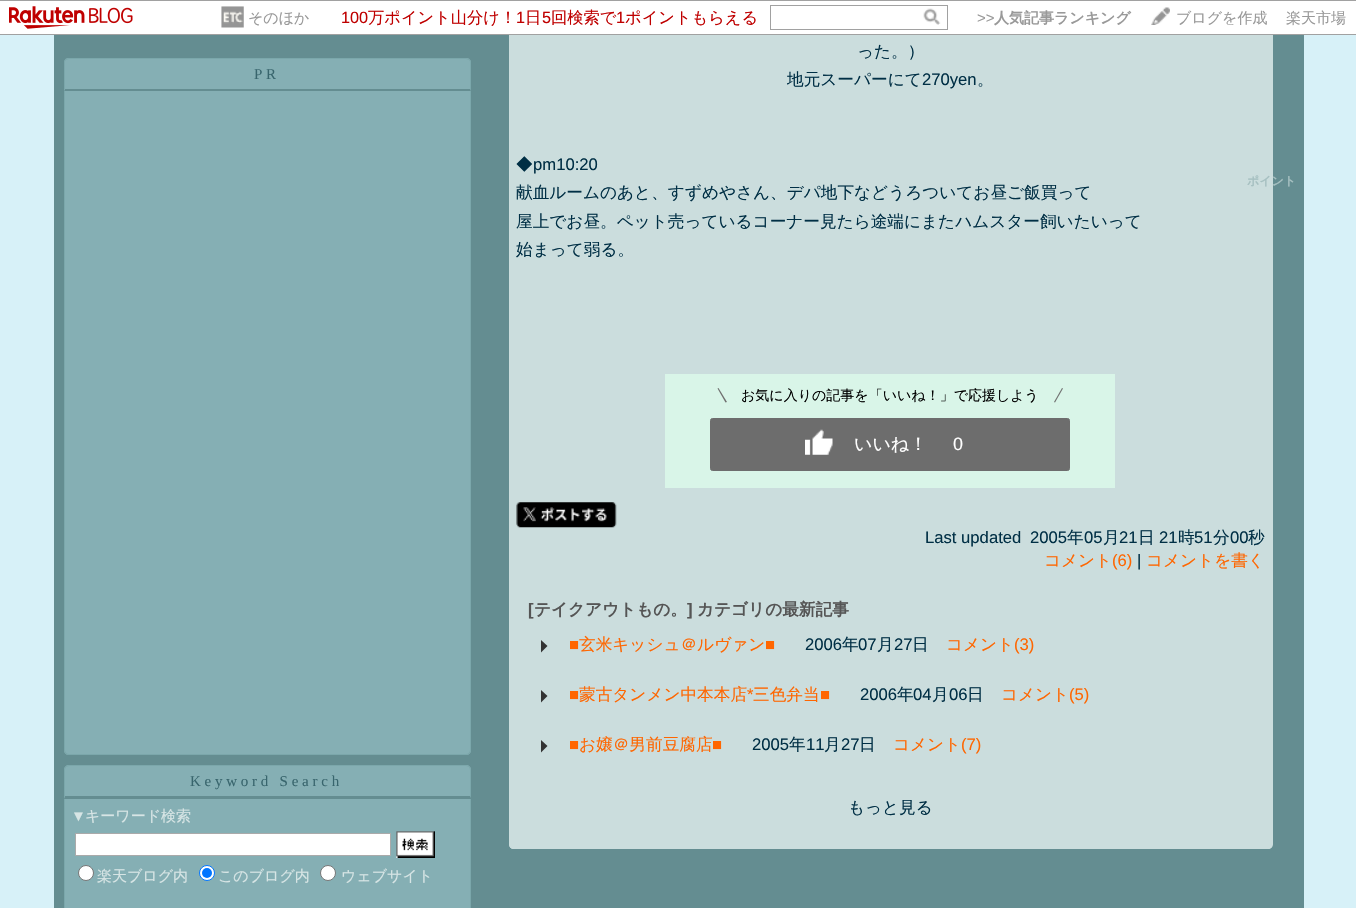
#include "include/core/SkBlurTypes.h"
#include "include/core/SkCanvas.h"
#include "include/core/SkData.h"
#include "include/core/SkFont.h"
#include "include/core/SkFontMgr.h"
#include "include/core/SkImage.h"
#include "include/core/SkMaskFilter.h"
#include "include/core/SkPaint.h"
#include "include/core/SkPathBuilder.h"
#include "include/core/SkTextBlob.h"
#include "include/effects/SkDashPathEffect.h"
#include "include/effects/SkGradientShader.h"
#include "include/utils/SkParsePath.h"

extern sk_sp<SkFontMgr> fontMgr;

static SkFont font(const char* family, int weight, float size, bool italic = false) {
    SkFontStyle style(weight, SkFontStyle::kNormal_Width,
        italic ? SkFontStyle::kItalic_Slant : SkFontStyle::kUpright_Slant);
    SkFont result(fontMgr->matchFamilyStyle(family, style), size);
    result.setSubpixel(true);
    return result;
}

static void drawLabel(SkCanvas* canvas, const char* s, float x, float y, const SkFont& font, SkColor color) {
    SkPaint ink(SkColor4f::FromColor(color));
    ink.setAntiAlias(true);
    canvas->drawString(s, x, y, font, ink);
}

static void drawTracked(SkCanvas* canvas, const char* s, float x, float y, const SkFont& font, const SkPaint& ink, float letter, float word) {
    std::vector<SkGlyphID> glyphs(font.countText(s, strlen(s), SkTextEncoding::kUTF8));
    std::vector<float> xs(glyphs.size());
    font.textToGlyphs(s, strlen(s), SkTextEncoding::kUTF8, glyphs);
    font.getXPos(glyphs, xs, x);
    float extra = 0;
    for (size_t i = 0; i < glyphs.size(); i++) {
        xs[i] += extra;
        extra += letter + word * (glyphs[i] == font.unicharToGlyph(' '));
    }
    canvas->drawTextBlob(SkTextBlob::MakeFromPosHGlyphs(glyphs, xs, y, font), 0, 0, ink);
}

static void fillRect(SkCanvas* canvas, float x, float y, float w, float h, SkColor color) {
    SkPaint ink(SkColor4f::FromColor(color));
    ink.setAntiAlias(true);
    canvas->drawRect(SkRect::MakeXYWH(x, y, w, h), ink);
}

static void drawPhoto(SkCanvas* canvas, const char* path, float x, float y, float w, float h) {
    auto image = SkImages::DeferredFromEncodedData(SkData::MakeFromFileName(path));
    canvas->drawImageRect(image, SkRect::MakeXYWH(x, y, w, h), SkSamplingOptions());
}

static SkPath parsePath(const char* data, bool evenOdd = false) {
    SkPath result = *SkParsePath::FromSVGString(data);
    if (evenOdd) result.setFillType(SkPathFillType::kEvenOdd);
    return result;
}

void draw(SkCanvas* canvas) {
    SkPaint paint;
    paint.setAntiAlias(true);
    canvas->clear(0xFFD7F1F8);
    fillRect(canvas, 54, 35, 1250, 873, 0xFF648D91);
    paint.setColor(0xFFCBDDDD);
    canvas->drawPath(parsePath("M509-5H1273V844C1273 847 1271 849 1268 849H514C511 849 509 847 509 844Z"), paint);
    canvas->drawPath(parsePath("M509-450H1272V844C1272 847 1270 849 1268 849H514C511 849 509 847 509 844ZM510-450H1271V844C1271 846 1270 848 1268 848H514C512 848 510 846 510 844Z", true), paint);
    fillRect(canvas, 0, 1, 1356, 33, 0xFFFFFFFF);
    fillRect(canvas, 0, 0, 1356, 1, 0xFFA1A1A1);
    fillRect(canvas, 0, 34, 1356, 1, 0xFFA1A1A1);
    drawPhoto(canvas, "assets/img1.png", 9, 6, 124, 23);
    drawPhoto(canvas, "assets/img2.png", 221, 6, 23, 22);
    SkFont font1 = font("WenQuanYi Zen Hei", 500, 15);
    drawLabel(canvas, "そのほか", 248, 23, font1, 0xFF999999);
    SkFont font2 = font("Liberation Sans", 400, 16.25f);
    drawLabel(canvas, "100", 341, 23, font2, 0xFFBF0000);
    SkFont font3 = font("WenQuanYi Zen Hei", 500, 16.25f);
    drawLabel(canvas, "万ポイント山分け！", 368, 23, font3, 0xFFBF0000);
    drawLabel(canvas, "1", 516, 23, font2, 0xFFBF0000);
    drawLabel(canvas, "日", 525, 23, font3, 0xFFBF0000);
    drawLabel(canvas, "5", 542, 23, font2, 0xFFBF0000);
    drawLabel(canvas, "回検索で", 551, 23, font3, 0xFFBF0000);
    drawLabel(canvas, "1", 616, 23, font2, 0xFFBF0000);
    drawLabel(canvas, "ポイントもらえる", 625, 23, font3, 0xFFBF0000);
    paint.setStroke(true);
    paint.setStrokeWidth(1);
    paint.setColor(0xFFA1A1A1);
    canvas->drawRect(SkRect::MakeXYWH(770.5f, 5.5f, 177, 24), paint);
    drawPhoto(canvas, "assets/img3.png", 923, 8, 18, 17);
    SkFont font4 = font("Liberation Sans", 400, 15);
    drawLabel(canvas, ">>", 977, 23, font4, 0xFF999999);
    SkFont font5 = font("WenQuanYi Zen Hei", 700, 15);
    drawLabel(canvas, "人気記事ランキング", 994, 23, font5, 0xFF999999);
    drawPhoto(canvas, "assets/img4.png", 1151, 7, 19, 18);
    canvas->save();
    canvas->clipRect(SkRect::MakeXYWH(976, 5, 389, 20));
    drawLabel(canvas, "ブログを作成", 1176, 23, font1, 0xFF999999);
    canvas->restore();
    drawLabel(canvas, "楽天市場", 1286, 23, font1, 0xFF999999);
    paint.setStroke(false);
    paint.setColor(0xFF85AFB4);
    canvas->drawPath(parsePath("M69 58H466C469 58 471 60 471 63V91H64V63C64 60 66 58 69 58Z"), paint);
    paint.setColor(0xFF7BA7AB);
    canvas->drawPath(parsePath("M69 58L65 59L66 60L69 59H466L469 60L470 59L466 58Z"), paint);
    canvas->drawPath(parsePath("M470 89L471 91V62C471 61 470.5 60 469.5 59L469 60C469.5 60.5 470 61 470 62Z"), paint);
    paint.setColor(0xFF648D91);
    canvas->drawPath(parsePath("M471 91H64L65 89H470Z"), paint);
    paint.setColor(0xFF7BA7AB);
    canvas->drawPath(parsePath("M65.5 59C64.5 60 64 61 64 62V91L65 89V62C65 61 65.5 60.5 66 60Z"), paint);
    SkFont font6 = font("Liberation Serif", 400, 15);
    paint.setColor(0xFF38656D);
    drawTracked(canvas, "PR", 254, 79, font6, paint, 3.75f, 0);
    paint.setColor(0xFF85AFB4);
    canvas->drawPath(parsePath("M64 91H471V750C471 753 469 755 466 755H69C66 755 64 753 64 750Z"), paint);
    paint.setColor(0xFF7BA7AB);
    canvas->drawPath(parsePath("M64 91H471V750C471 753 469 755 466 755H69C66 755 64 753 64 750ZM65 91H470V750C470 752 468 754 466 754H69C67 754 65 752 65 750Z", true), paint);
    paint.setColor(0xFF85AFB4);
    canvas->drawPath(parsePath("M69 765H466C469 765 471 767 471 770V799H64V770C64 767 66 765 69 765Z"), paint);
    paint.setColor(0xFF7BA7AB);
    canvas->drawPath(parsePath("M69 765C67 765 66 766 65 767H66L69 766H466L469 767H470C469 766 468 765 466 765Z"), paint);
    canvas->drawPath(parsePath("M469.5 766.5C470.5 767.5 471 768.5 471 770V798L470 796V770C470 769 469.5 768 469 767.5Z"), paint);
    paint.setColor(0xFF648D91);
    canvas->drawPath(parsePath("M64 799L65 796H470L471 798V799Z"), paint);
    paint.setColor(0xFF7BA7AB);
    canvas->drawPath(parsePath("M65.5 766.5C64.5 767.5 64 768.5 64 770V798L65 796V770C65 769 65.5 768 66 767.5Z"), paint);
    paint.setColor(0xFF38656D);
    drawTracked(canvas, "Keyword Search", 190, 786, font6, paint, 3.75f, 0);
    fillRect(canvas, 65, 799, 405, 109, 0xFF85AFB4);
    paint.setColor(0xFF7BA7AB);
    canvas->drawPath(parsePath("M64 799H471V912C471 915 469 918 466 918H69C66 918 64 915 64 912ZM65 799H470V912C470 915 468 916 466 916H69C67 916 65 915 65 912Z", true), paint);
    drawLabel(canvas, "▼", 71, 821, font4, 0xFFD7E5E5);
    drawLabel(canvas, "キーワード検索", 85, 821, font1, 0xFFD7E5E5);
    paint.setColor(0xFFFFFFFF);
    canvas->drawRect(SkRect::MakeXYWH(75.5f, 833.5f, 315, 22), paint);
    paint.setStroke(true);
    paint.setColor(0xFFAAAAAA);
    canvas->drawRect(SkRect::MakeXYWH(75.5f, 833.5f, 315, 22), paint);
    drawPhoto(canvas, "assets/img5.png", 396, 831, 39, 27);
    paint.setStroke(false);
    paint.setColor(0xFFFFFFFF);
    canvas->drawCircle(86, 873, 7.5f, paint);
    paint.setStroke(true);
    paint.setColor(0xFF767676);
    canvas->drawCircle(86, 873, 7.5f, paint);
    drawLabel(canvas, "楽天ブログ内", 97, 881, font1, 0xFFD7E5E5);
    paint.setStroke(false);
    paint.setColor(0xFFFFFFFF);
    canvas->drawCircle(207, 873, 7.5f, paint);
    paint.setStroke(true);
    paint.setColor(0xFF0075FF);
    canvas->drawCircle(207, 873, 7.5f, paint);
    paint.setStroke(false);
    canvas->drawCircle(207, 873, 5, paint);
    drawLabel(canvas, "このブログ内", 218, 881, font1, 0xFFD7E5E5);
    paint.setColor(0xFFFFFFFF);
    canvas->drawCircle(328, 873, 7.5f, paint);
    paint.setStroke(true);
    paint.setColor(0xFF767676);
    canvas->drawCircle(328, 873, 7.5f, paint);
    drawLabel(canvas, "ウェブサイト", 341, 881, font1, 0xFFD7E5E5);
    SkFont font7 = font("WenQuanYi Zen Hei", 500, 16.65f);
    drawLabel(canvas, "った。）", 857, 57, font7, 0xFF002F45);
    drawLabel(canvas, "地元スーパーにて", 787, 85, font7, 0xFF002F45);
    SkFont font8 = font("Liberation Sans", 400, 16.65f);
    drawLabel(canvas, "270yen", 922, 85, font8, 0xFF002F45);
    drawLabel(canvas, "。", 977, 85, font7, 0xFF002F45);
    drawLabel(canvas, "◆", 516, 170, font7, 0xFF002F45);
    drawLabel(canvas, "pm10:20", 533, 170, font8, 0xFF002F45);
    drawLabel(canvas, "献血ルームのあと、すずめやさん、デパ地下などうろついてお昼ご飯買って", 516, 198, font7, 0xFF002F45);
    drawLabel(canvas, "屋上でお昼。ペット売っているコーナー見たら途端にまたハムスター飼いたいって", 516, 227, font7, 0xFF002F45);
    drawLabel(canvas, "始まって弱る。", 516, 255, font7, 0xFF002F45);
    fillRect(canvas, 665, 374, 450, 114, 0xFFD9F5E8);
    paint.setStroke(false);
    paint.setColor(0xFF707070);
    canvas->drawPath(parsePath("M717.5 388.5L718.5 388L727 402L725.5 402.5Z"), paint);
    SkFont font9 = font("WenQuanYi Zen Hei", 500, 14);
    drawLabel(canvas, "お気に入りの記事を「いいね！」で応援しよう", 741, 400, font9, 0xFF000000);
    canvas->drawPath(parsePath("M1062 388L1063 388.5L1055 402.5L1054 402Z"), paint);
    paint.setColor(0xFF6D6D6D);
    canvas->drawRoundRect(SkRect::MakeXYWH(710.5f, 418.5f, 359, 52), 2, 2, paint);
    paint.setStroke(true);
    canvas->drawRoundRect(SkRect::MakeXYWH(710.5f, 418.5f, 359, 52), 2, 2, paint);
    drawPhoto(canvas, "assets/img6.png", 805, 429, 28, 26);
    SkFont font10 = font("WenQuanYi Zen Hei", 500, 18);
    drawLabel(canvas, "いいね！", 854, 450, font10, 0xFFFFFFFF);
    SkFont font11 = font("Liberation Sans", 400, 18);
    drawLabel(canvas, "0", 953, 450, font11, 0xFFFFFFFF);
    drawPhoto(canvas, "assets/img7.png", 516, 502, 101, 26);
    drawLabel(canvas, "Last updated", 925, 543, font8, 0xFF002F45);
    drawLabel(canvas, "2005", 1030, 543, font8, 0xFF002F45);
    drawLabel(canvas, "年", 1067, 543, font7, 0xFF002F45);
    drawLabel(canvas, "05", 1084, 543, font8, 0xFF002F45);
    drawLabel(canvas, "月", 1103, 543, font7, 0xFF002F45);
    drawLabel(canvas, "21", 1119, 543, font8, 0xFF002F45);
    drawLabel(canvas, "日", 1138, 543, font7, 0xFF002F45);
    drawLabel(canvas, "21", 1159, 543, font8, 0xFF002F45);
    drawLabel(canvas, "時", 1178, 543, font7, 0xFF002F45);
    drawLabel(canvas, "51", 1194, 543, font8, 0xFF002F45);
    drawLabel(canvas, "分", 1213, 543, font7, 0xFF002F45);
    drawLabel(canvas, "00", 1230, 543, font8, 0xFF002F45);
    drawLabel(canvas, "秒", 1248, 543, font7, 0xFF002F45);
    drawLabel(canvas, "コメント", 1044, 566, font7, 0xFFFF6600);
    drawLabel(canvas, "(6)", 1112, 566, font8, 0xFFFF6600);
    drawLabel(canvas, "|", 1137, 566, font8, 0xFF002F45);
    drawLabel(canvas, "コメントを書く", 1146, 566, font7, 0xFFFF6600);
    SkFont font12 = font("Liberation Sans", 700, 16.65f);
    drawLabel(canvas, "[", 528, 615, font12, 0xFF555555);
    SkFont font13 = font("WenQuanYi Zen Hei", 700, 16.65f);
    drawLabel(canvas, "テイクアウトもの。", 534, 615, font13, 0xFF555555);
    drawLabel(canvas, "]", 687, 615, font12, 0xFF555555);
    drawLabel(canvas, "カテゴリの最新記事", 697, 615, font13, 0xFF555555);
    paint.setStroke(false);
    paint.setColor(0xFF333333);
    canvas->drawPath(parsePath("M541 652.5V640L547.5 646Z"), paint);
    drawLabel(canvas, "■", 569, 650, font8, 0xFFFF6600);
    drawLabel(canvas, "玄米キッシュ＠ルヴァン", 579, 650, font7, 0xFFFF6600);
    drawLabel(canvas, "■", 765, 650, font8, 0xFFFF6600);
    drawLabel(canvas, "2006", 805, 650, font8, 0xFF002F45);
    drawLabel(canvas, "年", 842, 650, font7, 0xFF002F45);
    drawLabel(canvas, "07", 858, 650, font8, 0xFF002F45);
    drawLabel(canvas, "月", 877, 650, font7, 0xFF002F45);
    drawLabel(canvas, "27", 894, 650, font8, 0xFF002F45);
    drawLabel(canvas, "日", 912, 650, font7, 0xFF002F45);
    drawLabel(canvas, "コメント", 946, 650, font7, 0xFFFF6600);
    drawLabel(canvas, "(3)", 1014, 650, font8, 0xFFFF6600);
    canvas->drawPath(parsePath("M541 702.5V690L547.5 696Z"), paint);
    drawLabel(canvas, "■", 569, 700, font8, 0xFFFF6600);
    drawLabel(canvas, "蒙古タンメン中本本店", 579, 700, font7, 0xFFFF6600);
    drawLabel(canvas, "*", 747, 700, font8, 0xFFFF6600);
    drawLabel(canvas, "三色弁当", 753, 700, font7, 0xFFFF6600);
    drawLabel(canvas, "■", 820, 700, font8, 0xFFFF6600);
    drawLabel(canvas, "2006", 860, 700, font8, 0xFF002F45);
    drawLabel(canvas, "年", 897, 700, font7, 0xFF002F45);
    drawLabel(canvas, "04", 913, 700, font8, 0xFF002F45);
    drawLabel(canvas, "月", 932, 700, font7, 0xFF002F45);
    drawLabel(canvas, "06", 949, 700, font8, 0xFF002F45);
    drawLabel(canvas, "日", 967, 700, font7, 0xFF002F45);
    drawLabel(canvas, "コメント", 1001, 700, font7, 0xFFFF6600);
    drawLabel(canvas, "(5)", 1069, 700, font8, 0xFFFF6600);
    canvas->drawPath(parsePath("M541 752.5V740L547.5 746Z"), paint);
    drawLabel(canvas, "■", 569, 750, font8, 0xFFFF6600);
    drawLabel(canvas, "お嬢＠男前豆腐店", 579, 750, font7, 0xFFFF6600);
    drawLabel(canvas, "■", 712, 750, font8, 0xFFFF6600);
    drawLabel(canvas, "2005", 752, 750, font8, 0xFF002F45);
    drawLabel(canvas, "年", 789, 750, font7, 0xFF002F45);
    drawLabel(canvas, "11", 806, 750, font8, 0xFF002F45);
    drawLabel(canvas, "月", 824, 750, font7, 0xFF002F45);
    drawLabel(canvas, "27", 841, 750, font8, 0xFF002F45);
    drawLabel(canvas, "日", 859, 750, font7, 0xFF002F45);
    drawLabel(canvas, "コメント", 893, 750, font7, 0xFFFF6600);
    drawLabel(canvas, "(7)", 961, 750, font8, 0xFFFF6600);
    drawLabel(canvas, "もっと見る", 848, 813, font7, 0xFF002F45);
    SkFont font14 = font("WenQuanYi Zen Hei", 700, 12);
    drawLabel(canvas, "ポイント", 1247, 185, font14, 0xFFA6C0C1);
}
